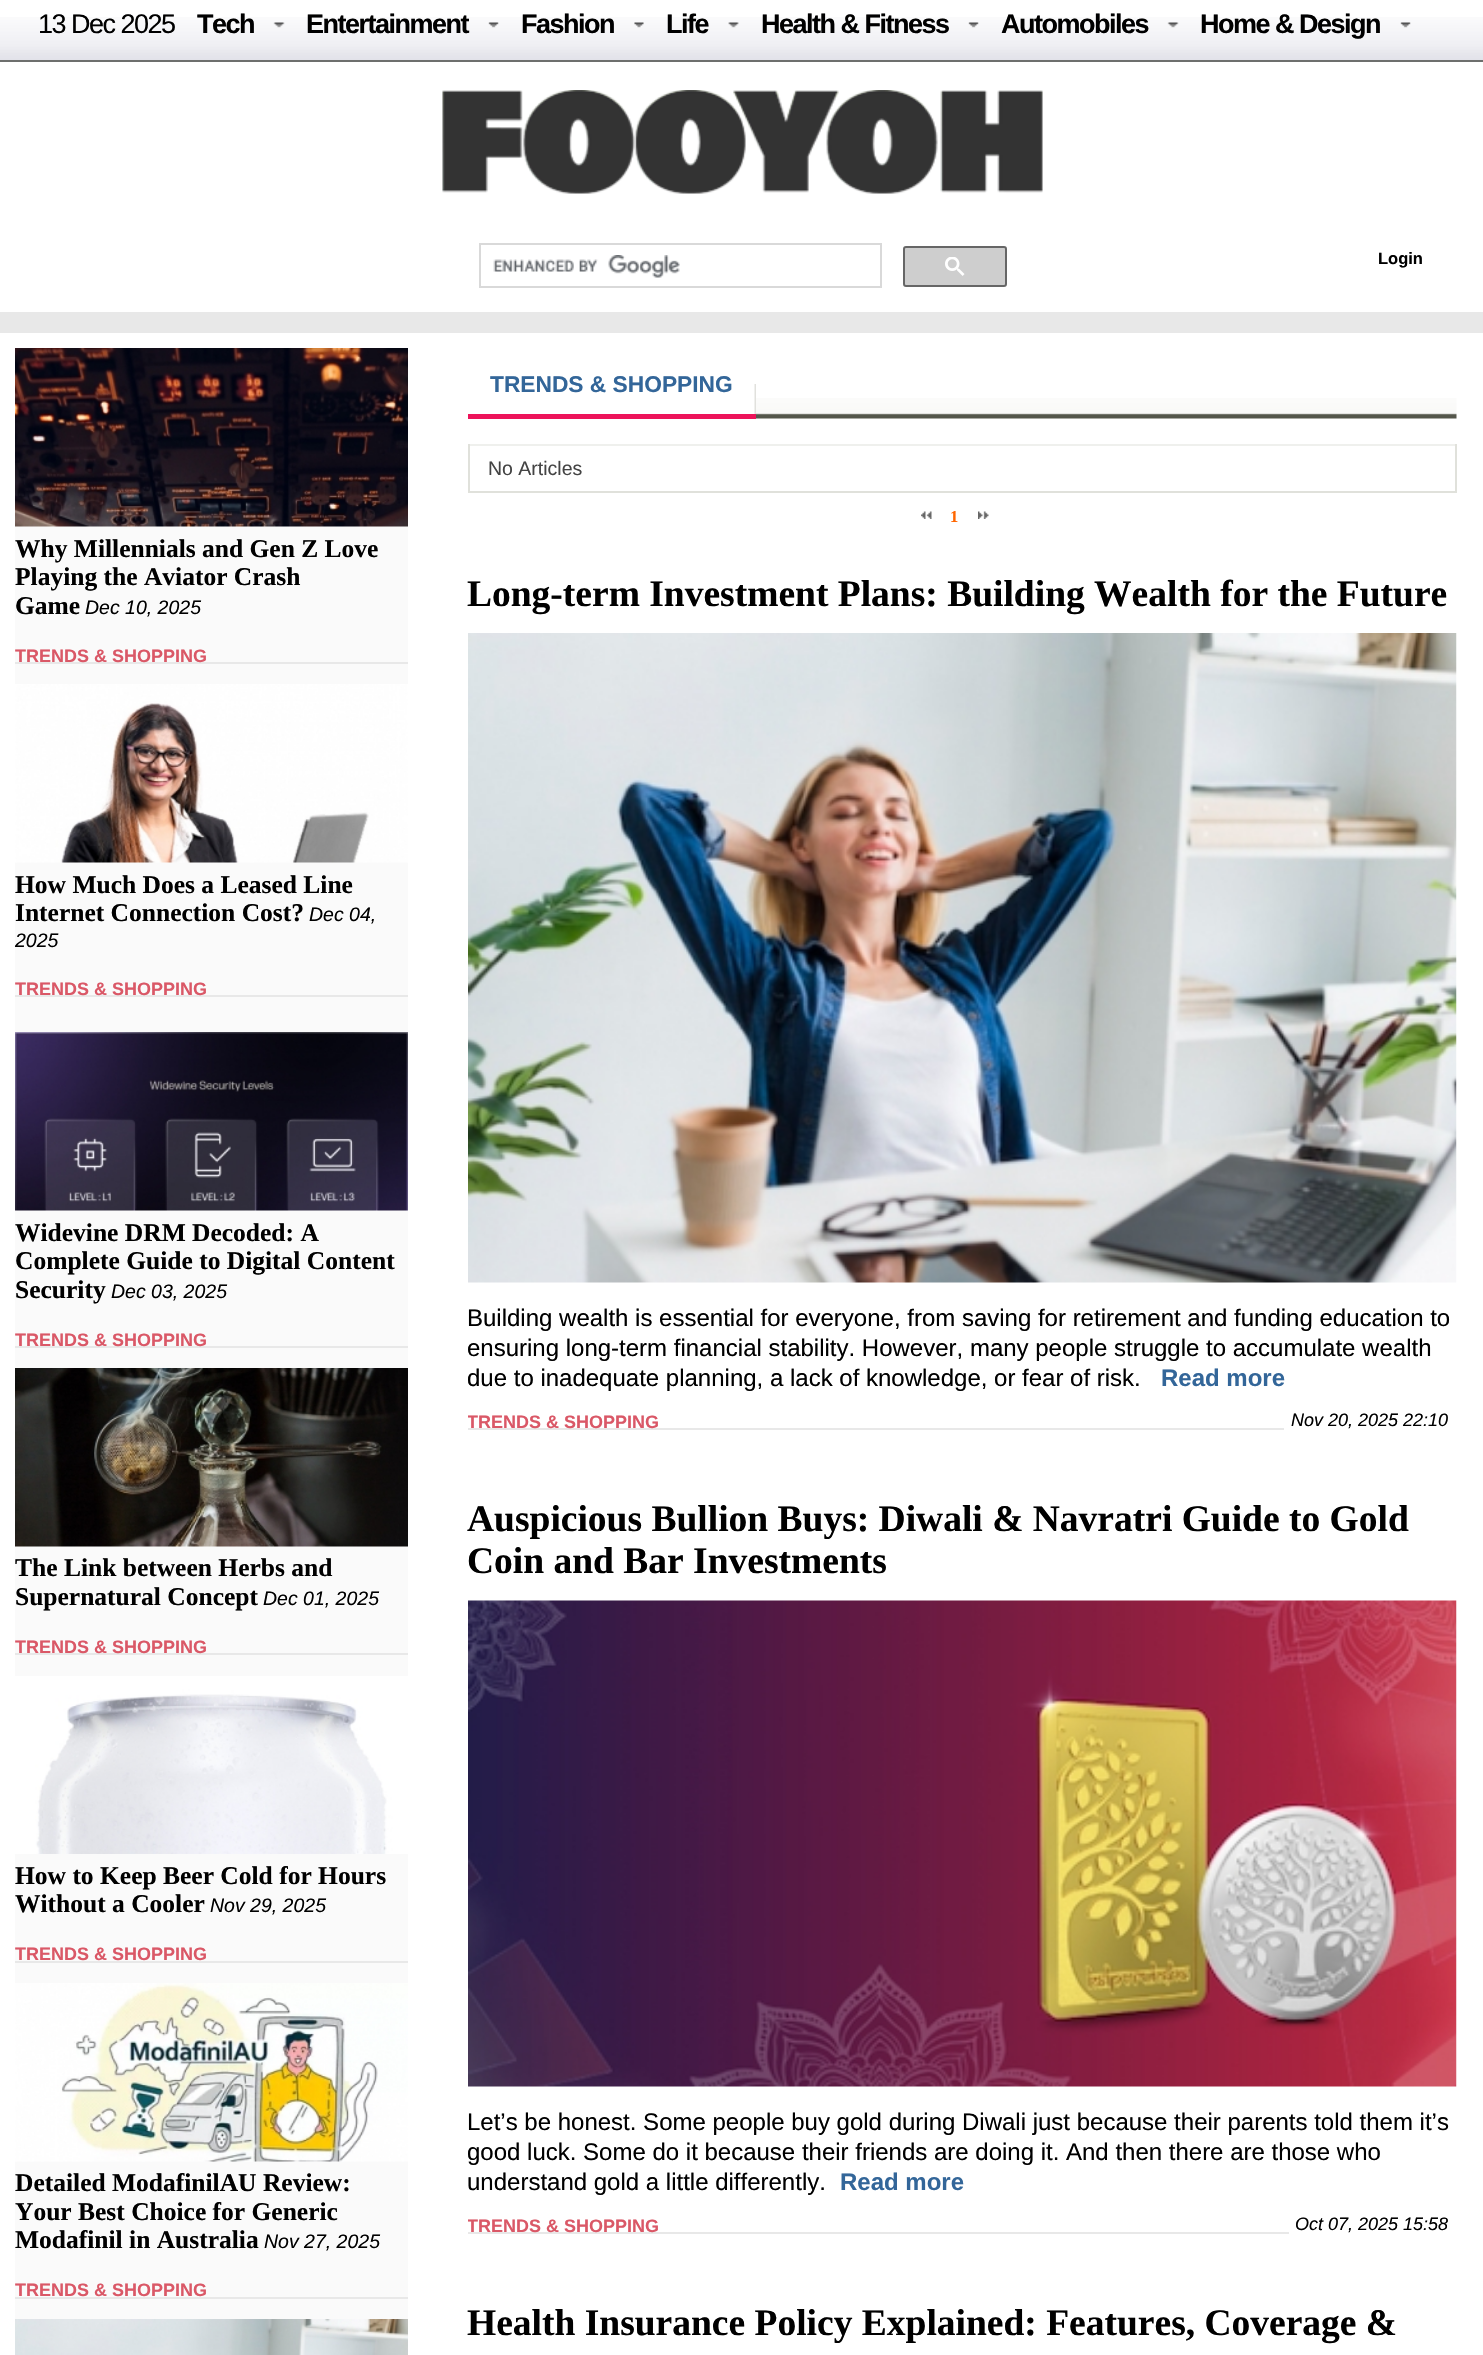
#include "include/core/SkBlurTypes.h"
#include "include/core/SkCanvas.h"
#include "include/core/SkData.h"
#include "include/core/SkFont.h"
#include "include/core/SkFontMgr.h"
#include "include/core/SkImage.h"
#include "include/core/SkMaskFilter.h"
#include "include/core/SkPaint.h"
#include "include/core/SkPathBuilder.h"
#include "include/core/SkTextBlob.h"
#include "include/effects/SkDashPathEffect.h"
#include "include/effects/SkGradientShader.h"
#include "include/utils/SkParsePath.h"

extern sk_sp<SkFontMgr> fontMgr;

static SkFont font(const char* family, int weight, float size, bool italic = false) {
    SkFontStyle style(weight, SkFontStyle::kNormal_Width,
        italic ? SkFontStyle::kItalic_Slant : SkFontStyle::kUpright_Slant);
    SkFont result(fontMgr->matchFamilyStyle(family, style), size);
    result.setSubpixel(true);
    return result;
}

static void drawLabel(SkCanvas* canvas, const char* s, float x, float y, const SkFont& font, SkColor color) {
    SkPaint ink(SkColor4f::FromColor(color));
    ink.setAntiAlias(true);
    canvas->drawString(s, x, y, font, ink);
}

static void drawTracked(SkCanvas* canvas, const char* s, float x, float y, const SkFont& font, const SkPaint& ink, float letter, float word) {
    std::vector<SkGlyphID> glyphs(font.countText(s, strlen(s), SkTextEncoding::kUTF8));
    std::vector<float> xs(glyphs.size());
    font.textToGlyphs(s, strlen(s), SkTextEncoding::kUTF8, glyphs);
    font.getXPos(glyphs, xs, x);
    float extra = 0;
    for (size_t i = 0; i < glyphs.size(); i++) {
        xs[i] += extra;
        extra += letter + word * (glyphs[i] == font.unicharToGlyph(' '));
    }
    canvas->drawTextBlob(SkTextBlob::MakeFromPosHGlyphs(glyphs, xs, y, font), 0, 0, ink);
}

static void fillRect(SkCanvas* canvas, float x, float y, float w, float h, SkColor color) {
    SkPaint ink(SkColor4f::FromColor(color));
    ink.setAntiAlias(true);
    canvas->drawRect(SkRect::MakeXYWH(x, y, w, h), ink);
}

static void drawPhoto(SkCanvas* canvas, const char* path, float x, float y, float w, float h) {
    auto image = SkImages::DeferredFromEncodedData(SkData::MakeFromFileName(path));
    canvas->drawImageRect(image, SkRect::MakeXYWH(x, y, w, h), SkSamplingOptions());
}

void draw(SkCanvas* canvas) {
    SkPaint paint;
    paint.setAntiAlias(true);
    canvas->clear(0xFFFFFFFF);
    drawPhoto(canvas, "assets/img1.png", 0, 17, 1483, 43);
    fillRect(canvas, 0, 60, 1483, 2, 0xFF6D6F6D);
    SkFont font1 = font("Liberation Sans", 400, 27);
    paint.setColor(0xFF000000);
    drawTracked(canvas, "13 Dec 2025", 38, 33, font1, paint, -1.5f, 0);
    drawPhoto(canvas, "assets/img2.png", 273, 22, 12, 6);
    SkFont font2 = font("Liberation Sans", 700, 27);
    drawTracked(canvas, "Tech", 197, 33, font2, paint, -1.5f, 0);
    drawPhoto(canvas, "assets/img3.png", 488, 22, 11, 6);
    drawTracked(canvas, "Entertainment", 306, 33, font2, paint, -1.5f, 0);
    drawPhoto(canvas, "assets/img4.png", 634, 22, 10, 6);
    drawTracked(canvas, "Fashion", 521, 33, font2, paint, -1.5f, 0);
    drawPhoto(canvas, "assets/img5.png", 728, 22, 11, 6);
    drawTracked(canvas, "Life", 666, 33, font2, paint, -1.5f, 0);
    drawPhoto(canvas, "assets/img3.png", 968, 22, 11, 6);
    drawTracked(canvas, "Health & Fitness", 761, 33, font2, paint, -1.5f, 0);
    drawPhoto(canvas, "assets/img2.png", 1167, 22, 12, 6);
    drawTracked(canvas, "Automobiles", 1001, 33, font2, paint, -1.5f, 0);
    drawPhoto(canvas, "assets/img3.png", 1400, 22, 11, 6);
    drawTracked(canvas, "Home & Design", 1200, 33, font2, paint, -1.5f, 0);
    drawPhoto(canvas, "assets/img6.png", 442, 90, 601, 104);
    paint.setStroke(true);
    paint.setStrokeWidth(2);
    paint.setColor(0xFFD9D9D9);
    canvas->drawRect(SkRect::MakeXYWH(480, 244, 401, 43), paint);
    drawPhoto(canvas, "assets/img7.png", 493, 255, 187, 23);
    paint.setStroke(false);
    paint.setColor(0xFFCECECE);
    canvas->drawRoundRect(SkRect::MakeXYWH(904, 247, 102, 39), 2, 2, paint);
    paint.setStroke(true);
    paint.setColor(0xFF666666);
    canvas->drawRoundRect(SkRect::MakeXYWH(904, 247, 102, 39), 2, 2, paint);
    drawPhoto(canvas, "assets/img8.png", 945, 257, 20, 19);
    SkFont font3 = font("Liberation Sans", 700, 16.5f);
    drawLabel(canvas, "Login", 1378, 264, font3, 0xFF000000);
    fillRect(canvas, 0, 312, 1483, 21, 0xFFE8E8E8);
    fillRect(canvas, 15, 526, 393, 1793, 0xFFFAFAFA);
    drawPhoto(canvas, "assets/img9.png", 15, 348, 393, 179);
    SkFont font4 = font("Liberation Serif", 700, 25.5f);
    drawLabel(canvas, "Why Millennials and Gen Z Love", 15, 557, font4, 0xFF000000);
    drawLabel(canvas, "Playing the Aviator Crash", 15, 585, font4, 0xFF000000);
    drawLabel(canvas, "Game", 15, 614, font4, 0xFF000000);
    SkFont font5 = font("Liberation Sans", 400, 19.5f, true);
    drawLabel(canvas, "Dec 10, 2025", 85, 614, font5, 0xFF000000);
    fillRect(canvas, 15, 662, 393, 2, 0xFFE8E8E8);
    SkFont font6 = font("Liberation Sans", 700, 18);
    drawLabel(canvas, "TRENDS & SHOPPING", 15, 662, font6, 0xFFDA5867);
    drawPhoto(canvas, "assets/img10.png", 15, 684, 393, 179);
    drawLabel(canvas, "How Much Does a Leased Line", 15, 893, font4, 0xFF000000);
    drawLabel(canvas, "Internet Connection Cost?", 15, 921, font4, 0xFF000000);
    drawLabel(canvas, "Dec 04,", 309, 921, font5, 0xFF000000);
    drawLabel(canvas, "2025", 15, 947, font5, 0xFF000000);
    fillRect(canvas, 15, 995, 393, 2, 0xFFE8E8E8);
    drawLabel(canvas, "TRENDS & SHOPPING", 15, 995, font6, 0xFFDA5867);
    drawPhoto(canvas, "assets/img11.png", 15, 1032, 393, 179);
    drawLabel(canvas, "Widevine DRM Decoded: A", 15, 1241, font4, 0xFF000000);
    drawLabel(canvas, "Complete Guide to Digital Content", 15, 1269, font4, 0xFF000000);
    drawLabel(canvas, "Security", 15, 1298, font4, 0xFF000000);
    drawLabel(canvas, "Dec 03, 2025", 111, 1298, font5, 0xFF000000);
    fillRect(canvas, 15, 1346, 393, 2, 0xFFE8E8E8);
    drawLabel(canvas, "TRENDS & SHOPPING", 15, 1346, font6, 0xFFDA5867);
    drawPhoto(canvas, "assets/img12.png", 15, 1368, 393, 179);
    drawLabel(canvas, "The Link between Herbs and", 15, 1576, font4, 0xFF000000);
    drawLabel(canvas, "Supernatural Concept", 15, 1605, font4, 0xFF000000);
    drawLabel(canvas, "Dec 01, 2025", 263, 1605, font5, 0xFF000000);
    fillRect(canvas, 15, 1653, 393, 2, 0xFFE8E8E8);
    drawLabel(canvas, "TRENDS & SHOPPING", 15, 1653, font6, 0xFFDA5867);
    drawPhoto(canvas, "assets/img13.png", 15, 1676, 393, 178);
    drawLabel(canvas, "How to Keep Beer Cold for Hours", 15, 1884, font4, 0xFF000000);
    drawLabel(canvas, "Without a Cooler", 15, 1912, font4, 0xFF000000);
    drawLabel(canvas, "Nov 29, 2025", 210, 1912, font5, 0xFF000000);
    drawLabel(canvas, "TRENDS & SHOPPING", 15, 1960, font6, 0xFFDA5867);
    fillRect(canvas, 15, 1961, 393, 2, 0xFFE8E8E8);
    drawPhoto(canvas, "assets/img14.png", 15, 1983, 393, 179);
    drawLabel(canvas, "Detailed ModafinilAU Review:", 15, 2191, font4, 0xFF000000);
    drawLabel(canvas, "Your Best Choice for Generic", 15, 2220, font4, 0xFF000000);
    drawLabel(canvas, "Modafinil in Australia", 15, 2248, font4, 0xFF000000);
    drawLabel(canvas, "Nov 27, 2025", 264, 2248, font5, 0xFF000000);
    drawLabel(canvas, "TRENDS & SHOPPING", 15, 2296, font6, 0xFFDA5867);
    fillRect(canvas, 15, 2297, 393, 2, 0xFFE8E8E8);
    drawPhoto(canvas, "assets/img15.png", 15, 2319, 393, 36);
    drawPhoto(canvas, "assets/img16.png", 756, 398, 701, 21);
    drawPhoto(canvas, "assets/img17.png", 754, 384, 2, 30);
    fillRect(canvas, 468, 414, 288, 5, 0xFFED135A);
    SkFont font7 = font("Liberation Sans", 700, 22.75f);
    drawLabel(canvas, "TRENDS & SHOPPING", 490, 392, font7, 0xFF336699);
    fillRect(canvas, 1455, 444, 2, 48, 0xFFE0E1DB);
    fillRect(canvas, 468, 491, 989, 2, 0xFFE0E1DB);
    fillRect(canvas, 468, 444, 2, 48, 0xFFE0E1DB);
    fillRect(canvas, 470, 444, 985, 2, 0xFFEFF0ED);
    SkFont font8 = font("Liberation Sans", 400, 19.5f);
    drawLabel(canvas, "No Articles", 488, 475, font8, 0xFF444444);
    drawPhoto(canvas, "assets/img18.png", 921, 511, 11, 8);
    SkFont font9 = font("Liberation Serif", 700, 16.5f);
    drawLabel(canvas, "1", 950, 522, font9, 0xFFFF6600);
    drawPhoto(canvas, "assets/img19.png", 978, 511, 11, 8);
    SkFont font10 = font("Liberation Serif", 700, 37.5f);
    drawLabel(canvas, "Long-term Investment Plans: Building Wealth for the Future", 467, 606, font10, 0xFF000000);
    drawPhoto(canvas, "assets/img20.png", 468, 633, 989, 650);
    SkFont font11 = font("Liberation Sans", 400, 24);
    drawLabel(canvas, "Building wealth is essential for everyone, from saving for retirement and funding education to", 467, 1326, font11, 0xFF000000);
    drawLabel(canvas, "ensuring long-term financial stability. However, many people struggle to accumulate wealth", 467, 1356, font11, 0xFF000000);
    drawLabel(canvas, "due to inadequate planning, a lack of knowledge, or fear of risk.", 467, 1386, font11, 0xFF000000);
    SkFont font12 = font("Liberation Sans", 700, 24);
    drawLabel(canvas, "Read more", 1161, 1386, font12, 0xFF336699);
    fillRect(canvas, 468, 1428, 816, 2, 0xFFE8E8E8);
    canvas->save();
    canvas->clipRect(SkRect::MakeXYWH(468, 540, 989, 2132));
    drawLabel(canvas, "TRENDS & SHOPPING", 467, 1428, font6, 0xFFDA5867);
    canvas->restore();
    SkFont font13 = font("Liberation Sans", 400, 18, true);
    drawLabel(canvas, "Nov 20, 2025 22:10", 1291, 1426, font13, 0xFF000000);
    drawLabel(canvas, "Auspicious Bullion Buys: Diwali & Navratri Guide to Gold", 467, 1531, font10, 0xFF000000);
    drawLabel(canvas, "Coin and Bar Investments", 467, 1573, font10, 0xFF000000);
    drawPhoto(canvas, "assets/img21.png", 468, 1600, 989, 487);
    drawLabel(canvas, "Let’s be honest. Some people buy gold during Diwali just because their parents told them it’s", 467, 2130, font11, 0xFF000000);
    drawLabel(canvas, "good luck. Some do it because their friends are doing it. And then there are those who", 467, 2160, font11, 0xFF000000);
    drawLabel(canvas, "understand gold a little differently.", 467, 2190, font11, 0xFF000000);
    drawLabel(canvas, "Read more", 840, 2190, font12, 0xFF336699);
    fillRect(canvas, 468, 2232, 821, 2, 0xFFE8E8E8);
    canvas->save();
    canvas->clipRect(SkRect::MakeXYWH(468, 540, 989, 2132));
    drawLabel(canvas, "TRENDS & SHOPPING", 467, 2232, font6, 0xFFDA5867);
    canvas->restore();
    drawLabel(canvas, "Oct 07, 2025 15:58", 1295, 2230, font13, 0xFF000000);
    drawLabel(canvas, "Health Insurance Policy Explained: Features, Coverage &", 467, 2335, font10, 0xFF000000);
}
